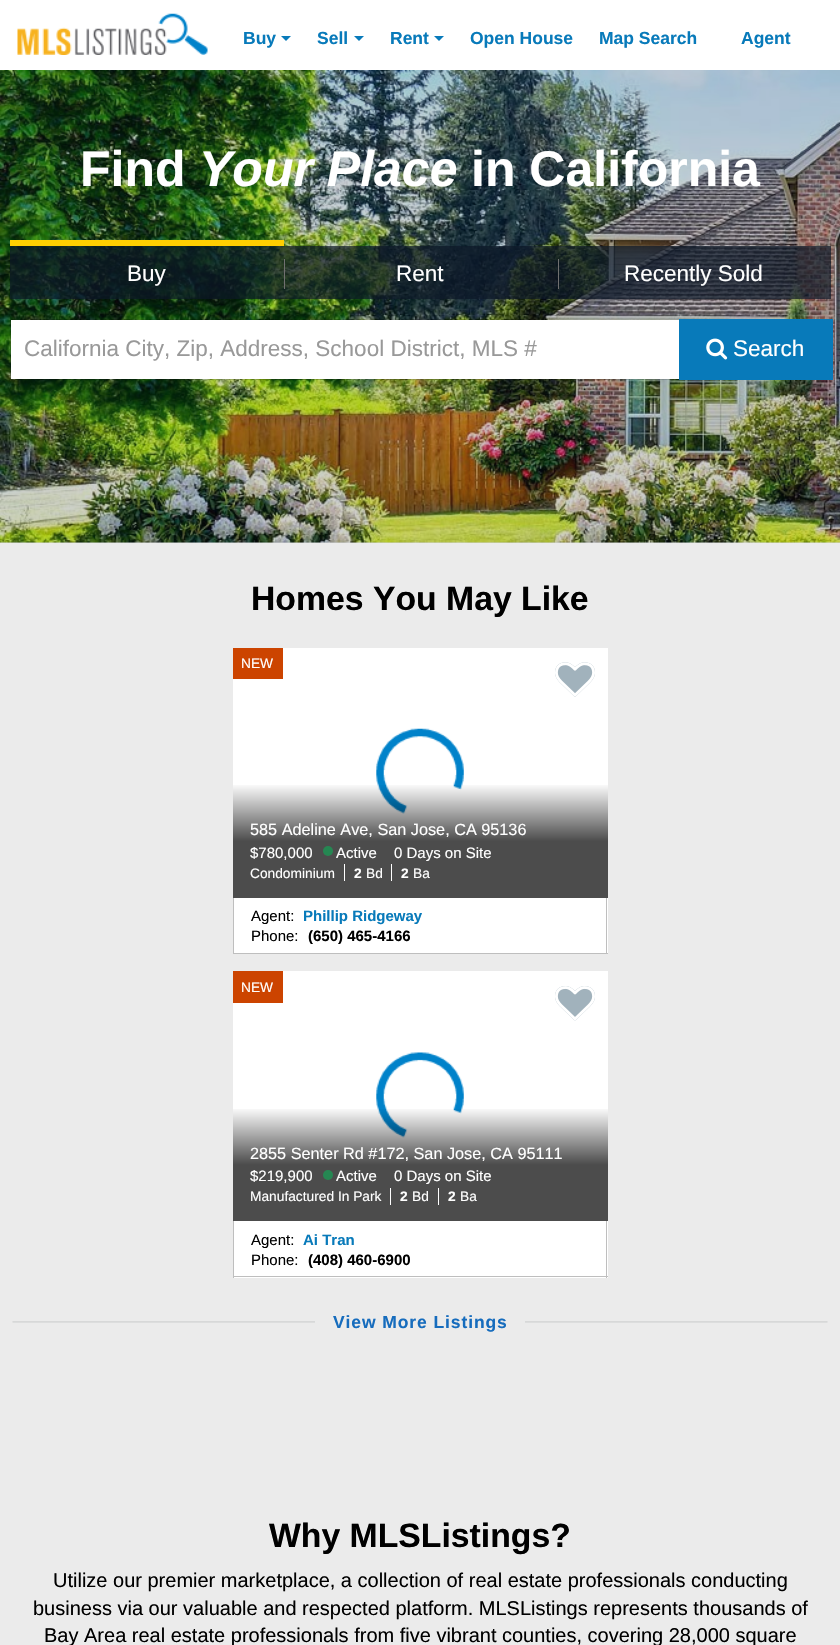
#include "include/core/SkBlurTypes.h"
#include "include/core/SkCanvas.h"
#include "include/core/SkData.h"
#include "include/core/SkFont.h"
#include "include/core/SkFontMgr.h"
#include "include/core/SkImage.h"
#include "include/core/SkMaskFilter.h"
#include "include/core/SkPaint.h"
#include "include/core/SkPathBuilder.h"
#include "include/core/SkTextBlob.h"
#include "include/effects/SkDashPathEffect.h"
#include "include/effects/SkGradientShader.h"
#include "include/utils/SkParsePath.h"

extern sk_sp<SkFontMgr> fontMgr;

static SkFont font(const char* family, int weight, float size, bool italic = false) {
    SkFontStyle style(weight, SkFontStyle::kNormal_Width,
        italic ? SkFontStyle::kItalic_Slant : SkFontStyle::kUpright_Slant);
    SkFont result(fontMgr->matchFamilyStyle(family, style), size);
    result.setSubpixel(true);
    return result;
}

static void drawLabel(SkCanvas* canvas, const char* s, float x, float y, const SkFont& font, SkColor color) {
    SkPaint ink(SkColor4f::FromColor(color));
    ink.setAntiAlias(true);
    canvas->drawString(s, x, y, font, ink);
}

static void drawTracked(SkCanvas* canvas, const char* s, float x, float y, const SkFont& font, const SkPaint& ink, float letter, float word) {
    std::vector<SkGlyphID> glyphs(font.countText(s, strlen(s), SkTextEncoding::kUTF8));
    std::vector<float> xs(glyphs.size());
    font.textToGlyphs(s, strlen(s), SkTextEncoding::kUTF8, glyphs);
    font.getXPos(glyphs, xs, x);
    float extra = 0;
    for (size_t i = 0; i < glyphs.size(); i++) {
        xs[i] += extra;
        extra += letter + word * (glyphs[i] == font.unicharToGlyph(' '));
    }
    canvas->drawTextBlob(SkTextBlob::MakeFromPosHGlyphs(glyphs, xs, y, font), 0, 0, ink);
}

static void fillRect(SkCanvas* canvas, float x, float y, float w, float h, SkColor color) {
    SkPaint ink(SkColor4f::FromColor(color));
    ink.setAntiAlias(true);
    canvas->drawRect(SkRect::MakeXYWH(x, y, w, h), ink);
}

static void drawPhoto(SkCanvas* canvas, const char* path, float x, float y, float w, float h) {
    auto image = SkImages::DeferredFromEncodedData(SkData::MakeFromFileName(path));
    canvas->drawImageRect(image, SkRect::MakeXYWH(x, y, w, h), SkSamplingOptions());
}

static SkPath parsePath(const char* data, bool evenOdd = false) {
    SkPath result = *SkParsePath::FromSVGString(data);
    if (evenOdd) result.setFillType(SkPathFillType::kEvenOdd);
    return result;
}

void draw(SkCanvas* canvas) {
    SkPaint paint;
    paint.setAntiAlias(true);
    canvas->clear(0xFFFFFFFF);
    fillRect(canvas, 0, 542, 840, 1, 0xFFCED1D4);
    drawPhoto(canvas, "assets/img1.png", 17, 13, 191, 42);
    SkFont font1 = font("Liberation Sans", 700, 17.5f);
    drawLabel(canvas, "Buy", 243, 44, font1, 0xFF087ABA);
    paint.setColor(0xFF087ABA);
    canvas->drawPath(parsePath("M281 36H291L286 41Z"), paint);
    drawLabel(canvas, "Sell", 317, 44, font1, 0xFF087ABA);
    canvas->drawPath(parsePath("M354 36H364L359 41Z"), paint);
    drawLabel(canvas, "Rent", 390, 44, font1, 0xFF087ABA);
    canvas->drawPath(parsePath("M434 36H444L439 41Z"), paint);
    drawLabel(canvas, "Open House", 470, 44, font1, 0xFF087ABA);
    drawLabel(canvas, "Map Search", 599, 44, font1, 0xFF087ABA);
    drawLabel(canvas, "Agent", 741, 44, font1, 0xFF087ABA);
    drawPhoto(canvas, "assets/img2.png", 0, 70, 840, 473);
    SkFont font2 = font("Liberation Sans", 700, 50);
    drawLabel(canvas, "Find", 80, 186, font2, 0xFFFFFFFF);
    SkFont font3 = font("Liberation Sans", 700, 50, true);
    drawLabel(canvas, "Your Place", 199, 186, font3, 0xFFFFFFFF);
    drawLabel(canvas, "in California", 471, 186, font2, 0xFFFFFFFF);
    fillRect(canvas, 10, 246, 274, 53, 0xB30C1726);
    fillRect(canvas, 10, 240, 274, 6, 0xFFFFCF01);
    SkFont font4 = font("Liberation Sans", 400, 22.5f);
    drawLabel(canvas, "Buy", 127, 281, font4, 0xFFFFFFFF);
    fillRect(canvas, 284, 246, 274, 53, 0xB30C1726);
    fillRect(canvas, 284, 259, 1, 30, 0xFF707070);
    drawLabel(canvas, "Rent", 396, 281, font4, 0xFFFFFFFF);
    fillRect(canvas, 558, 246, 273, 53, 0xB30C1726);
    fillRect(canvas, 558, 259, 1, 30, 0xFF707070);
    drawLabel(canvas, "Recently Sold", 624, 281, font4, 0xFFFFFFFF);
    fillRect(canvas, 11, 320, 668, 59, 0xFFFFFFFF);
    paint.setStroke(true);
    paint.setStrokeWidth(1);
    paint.setColor(0x26000000);
    canvas->drawRect(SkRect::MakeXYWH(10.5f, 319.5f, 669, 60), paint);
    drawLabel(canvas, "California City, Zip, Address, School District, MLS #", 24, 356, font4, 0xFF999999);
    fillRect(canvas, 679, 319, 154, 61, 0xFF087ABA);
    drawPhoto(canvas, "assets/img3.png", 706, 338, 22, 22);
    drawLabel(canvas, "Search", 733, 356, font4, 0xFFFFFFFF);
    fillRect(canvas, 0, 543, 840, 1102, 0xFFEBEBEB);
    SkFont font5 = font("Liberation Sans", 700, 33.75f);
    drawLabel(canvas, "Homes You May Like", 251, 610, font5, 0xFF000000);
    fillRect(canvas, 233, 648, 375, 305, 0xFFFFFFFF);
    fillRect(canvas, 233, 648, 50, 31, 0xFFCC4400);
    SkFont font6 = font("Liberation Sans", 400, 13.75f);
    drawLabel(canvas, "NEW", 241, 668, font6, 0xFFFFFFFF);
    drawPhoto(canvas, "assets/img4.png", 376, 728, 88, 86);
    paint.setStroke(false);
    {
        const SkColor colors[] = {0x00000000, 0xB3000000};
        const float stops[] = {0.13f, 0.57f};
        const SkPoint ends[] = {{420, 766}, {420, 898}};
        paint.setShader(SkGradientShader::MakeLinear(ends, colors, stops, 2, SkTileMode::kClamp));
        paint.setAlpha(255);
    }
    canvas->drawRect(SkRect::MakeXYWH(233, 785, 375, 113), paint);
    SkFont font7 = font("Liberation Sans", 400, 16.25f);
    drawLabel(canvas, "585 Adeline Ave, San Jose, CA 95136", 250, 835, font7, 0xFFFFFFFF);
    SkFont font8 = font("Liberation Sans", 400, 15);
    drawLabel(canvas, "$780,000", 250, 858, font8, 0xFFFFFFFF);
    paint.setShader(nullptr);
    paint.setColor(0xFF258752);
    canvas->drawCircle(328, 851, 5, paint);
    drawLabel(canvas, "Active", 336, 858, font8, 0xFFFFFFFF);
    drawLabel(canvas, "0 Days on Site", 394, 858, font8, 0xFFFFFFFF);
    fillRect(canvas, 344, 864, 1, 17, 0xFFFFFFFF);
    drawLabel(canvas, "Condominium", 250, 878, font6, 0xFFFFFFFF);
    fillRect(canvas, 391, 864, 1, 17, 0xFFFFFFFF);
    SkFont font9 = font("Liberation Sans", 700, 13.75f);
    drawLabel(canvas, "2", 354, 878, font9, 0xFFFFFFFF);
    drawLabel(canvas, "Bd", 366, 878, font6, 0xFFFFFFFF);
    drawLabel(canvas, "2", 401, 878, font9, 0xFFFFFFFF);
    drawLabel(canvas, "Ba", 413, 878, font6, 0xFFFFFFFF);
    fillRect(canvas, 606, 898, 1, 56, 0xFFBEBEBE);
    fillRect(canvas, 233, 953, 375, 1, 0xFFBEBEBE);
    fillRect(canvas, 233, 898, 1, 56, 0xFFBEBEBE);
    drawPhoto(canvas, "assets/img5.png", 555, 662, 40, 35);
    drawPhoto(canvas, "assets/img6.png", 555, 662, 40, 35);
    drawLabel(canvas, "Agent:", 251, 921, font8, 0xFF000000);
    SkFont font10 = font("Liberation Sans", 700, 15);
    drawLabel(canvas, "Phillip Ridgeway", 303, 921, font10, 0xFF087ABA);
    drawLabel(canvas, "Phone:", 251, 941, font8, 0xFF000000);
    drawLabel(canvas, "(650) 465-4166", 308, 941, font10, 0xFF000000);
    fillRect(canvas, 233, 971, 375, 307, 0xFFFFFFFF);
    fillRect(canvas, 233, 971, 50, 32, 0xFFCC4400);
    drawLabel(canvas, "NEW", 241, 992, font6, 0xFFFFFFFF);
    drawPhoto(canvas, "assets/img7.png", 376, 1052, 88, 86);
    {
        const SkColor colors[] = {0x00000000, 0xB3000000};
        const float stops[] = {0.13f, 0.57f};
        const SkPoint ends[] = {{420, 1090}, {420, 1221}};
        paint.setShader(SkGradientShader::MakeLinear(ends, colors, stops, 2, SkTileMode::kClamp));
        paint.setAlpha(255);
    }
    canvas->drawRect(SkRect::MakeXYWH(233, 1109, 375, 112), paint);
    drawLabel(canvas, "2855 Senter Rd #172, San Jose, CA 95111", 250, 1159, font7, 0xFFFFFFFF);
    drawLabel(canvas, "$219,900", 250, 1181, font8, 0xFFFFFFFF);
    paint.setShader(nullptr);
    paint.setColor(0xFF258752);
    canvas->drawCircle(328, 1175, 5, paint);
    drawLabel(canvas, "Active", 336, 1181, font8, 0xFFFFFFFF);
    drawLabel(canvas, "0 Days on Site", 394, 1181, font8, 0xFFFFFFFF);
    fillRect(canvas, 390, 1188, 1, 17, 0xFFFFFFFF);
    drawLabel(canvas, "Manufactured In Park", 250, 1201, font6, 0xFFFFFFFF);
    fillRect(canvas, 438, 1188, 1, 17, 0xFFFFFFFF);
    drawLabel(canvas, "2", 400, 1201, font9, 0xFFFFFFFF);
    drawLabel(canvas, "Bd", 412, 1201, font6, 0xFFFFFFFF);
    drawLabel(canvas, "2", 448, 1201, font9, 0xFFFFFFFF);
    drawLabel(canvas, "Ba", 460, 1201, font6, 0xFFFFFFFF);
    fillRect(canvas, 606, 1221, 1, 57, 0xFFBEBEBE);
    fillRect(canvas, 233, 1276, 375, 1, 0xFFBEBEBE);
    fillRect(canvas, 233, 1221, 1, 57, 0xFFBEBEBE);
    drawPhoto(canvas, "assets/img8.png", 555, 986, 40, 35);
    drawPhoto(canvas, "assets/img9.png", 555, 986, 40, 35);
    drawLabel(canvas, "Agent:", 251, 1245, font8, 0xFF000000);
    drawLabel(canvas, "Ai Tran", 303, 1245, font10, 0xFF087ABA);
    drawLabel(canvas, "Phone:", 251, 1265, font8, 0xFF000000);
    drawLabel(canvas, "(408) 460-6900", 308, 1265, font10, 0xFF000000);
    drawPhoto(canvas, "assets/img10.png", 12, 1321, 303, 2);
    paint.setColor(0xFF166CBD);
    drawTracked(canvas, "View More Listings", 333, 1328, font1, paint, 0.9f, 0);
    drawPhoto(canvas, "assets/img11.png", 525, 1321, 303, 2);
    drawLabel(canvas, "Why MLSListings?", 269, 1547, font5, 0xFF000000);
    SkFont font11 = font("Liberation Sans", 400, 20);
    drawLabel(canvas, "Utilize our premier marketplace, a collection of real estate professionals conducting", 53, 1587, font11, 0xFF000000);
    drawLabel(canvas, "business via our valuable and respected platform. MLSListings represents thousands of", 33, 1615, font11, 0xFF000000);
    drawLabel(canvas, "Bay Area real estate professionals from five vibrant counties, covering 28,000 square", 44, 1642, font11, 0xFF000000);
}
